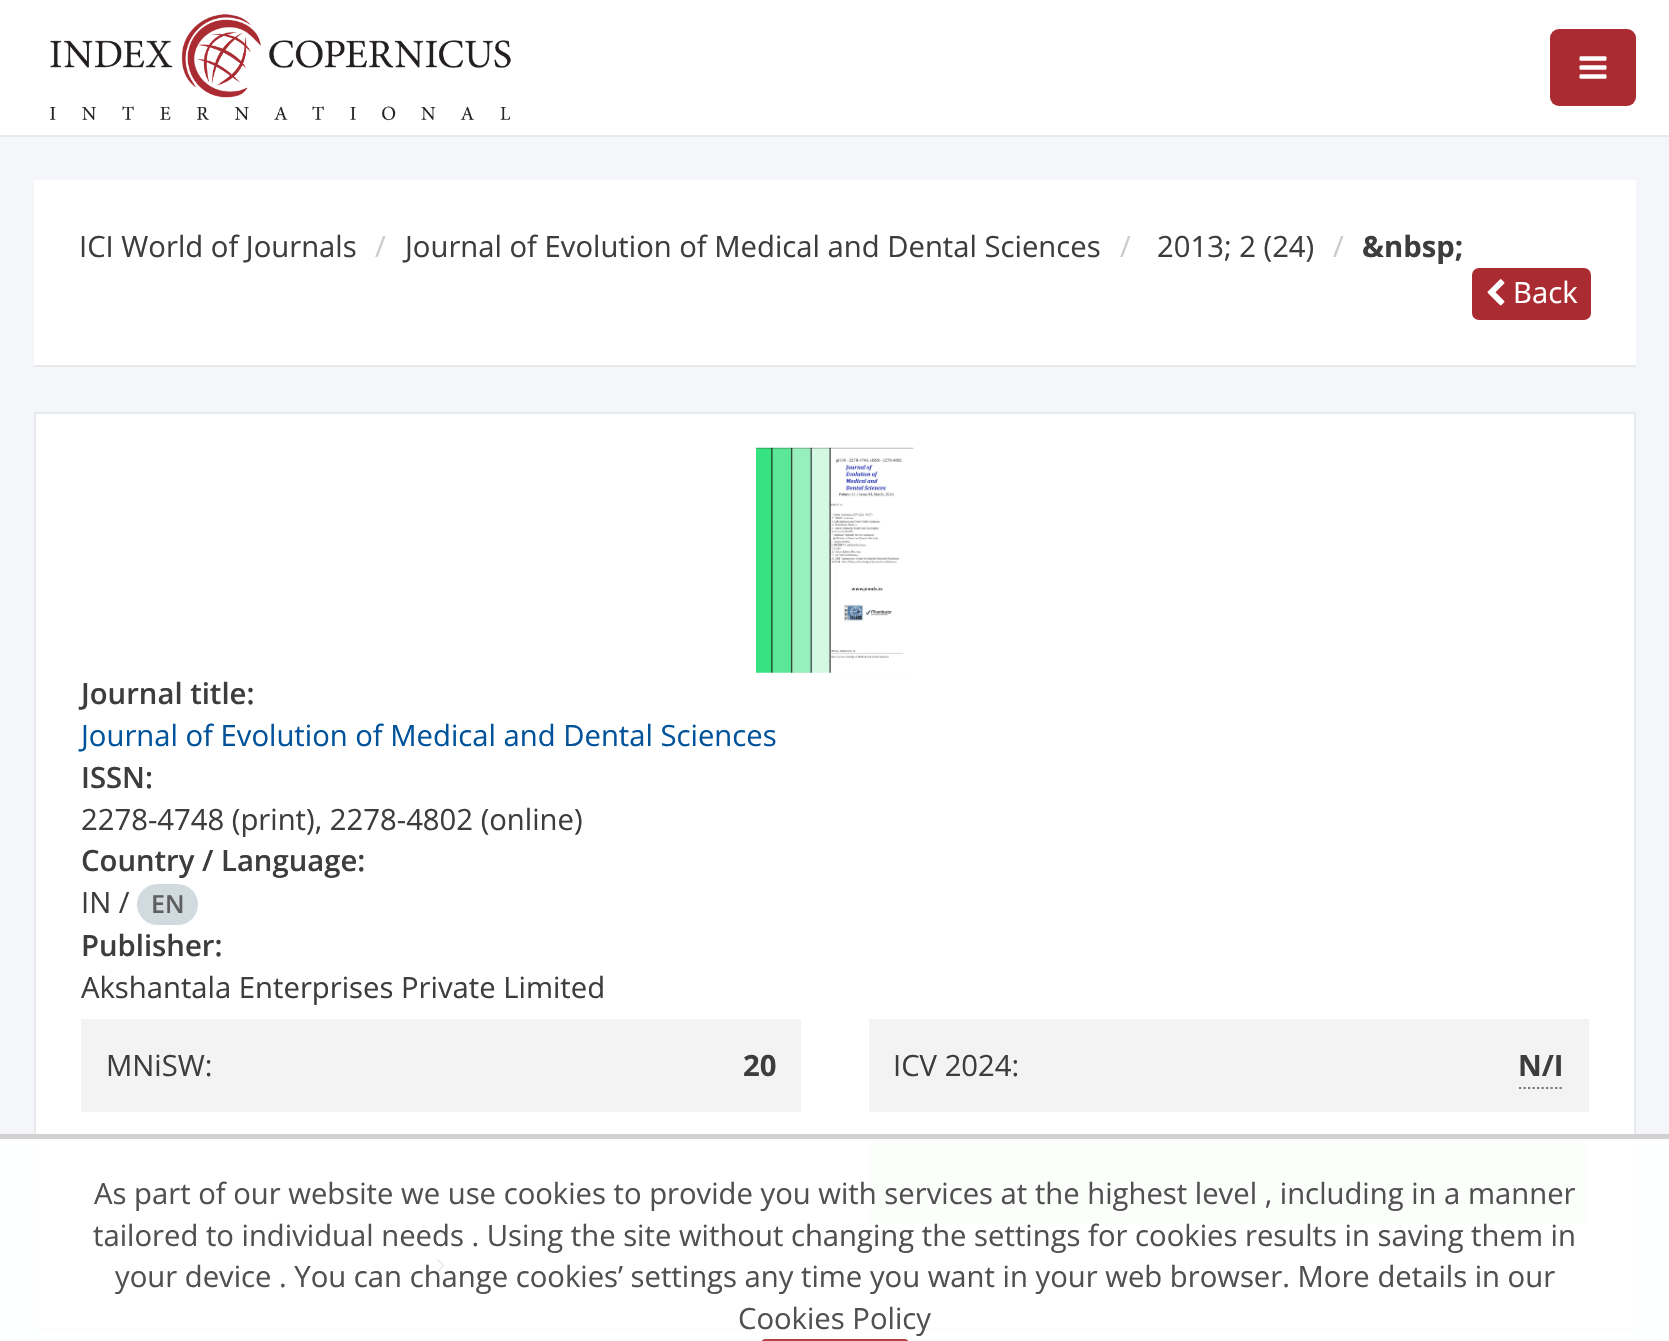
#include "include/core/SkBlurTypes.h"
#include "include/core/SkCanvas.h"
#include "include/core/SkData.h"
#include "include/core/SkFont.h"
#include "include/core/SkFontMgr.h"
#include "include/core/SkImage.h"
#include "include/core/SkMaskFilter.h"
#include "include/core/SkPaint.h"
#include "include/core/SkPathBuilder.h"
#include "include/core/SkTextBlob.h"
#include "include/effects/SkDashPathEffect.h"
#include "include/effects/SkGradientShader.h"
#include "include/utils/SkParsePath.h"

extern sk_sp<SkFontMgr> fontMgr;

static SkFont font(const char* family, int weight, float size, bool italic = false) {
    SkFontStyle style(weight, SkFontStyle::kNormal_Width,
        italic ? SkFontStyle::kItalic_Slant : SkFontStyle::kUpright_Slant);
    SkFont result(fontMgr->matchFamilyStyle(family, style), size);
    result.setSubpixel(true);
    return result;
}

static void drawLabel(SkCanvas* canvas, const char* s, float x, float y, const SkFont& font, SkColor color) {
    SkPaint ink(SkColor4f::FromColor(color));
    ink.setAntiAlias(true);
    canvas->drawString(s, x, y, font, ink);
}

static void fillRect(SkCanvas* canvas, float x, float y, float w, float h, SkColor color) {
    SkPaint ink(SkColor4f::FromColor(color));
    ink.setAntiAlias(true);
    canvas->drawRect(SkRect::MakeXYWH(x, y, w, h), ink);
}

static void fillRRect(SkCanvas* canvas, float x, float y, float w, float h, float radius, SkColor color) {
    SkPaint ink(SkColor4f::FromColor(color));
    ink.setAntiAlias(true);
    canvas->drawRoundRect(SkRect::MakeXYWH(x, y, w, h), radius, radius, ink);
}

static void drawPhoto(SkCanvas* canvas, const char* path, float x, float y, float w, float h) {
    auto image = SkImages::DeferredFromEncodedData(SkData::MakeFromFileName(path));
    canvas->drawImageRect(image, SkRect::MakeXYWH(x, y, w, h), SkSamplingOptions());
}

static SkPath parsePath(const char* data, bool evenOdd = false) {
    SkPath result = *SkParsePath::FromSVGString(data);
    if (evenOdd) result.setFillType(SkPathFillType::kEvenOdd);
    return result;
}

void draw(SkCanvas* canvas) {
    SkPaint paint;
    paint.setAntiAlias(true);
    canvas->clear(0xFFF4F6FA);
    fillRect(canvas, 0, 0, 1669, 135, 0xFFFFFFFF);
    fillRect(canvas, 0, 135, 1669, 2, 0xFFE7EAEC);
    drawPhoto(canvas, "assets/img1.png", 50, 14, 461, 107);
    fillRRect(canvas, 1550, 29, 86, 77, 9, 0xFFAA2B31);
    drawPhoto(canvas, "assets/img2.png", 1579, 56, 28, 23);
    fillRect(canvas, 34, 180, 1602, 185, 0xFFFFFFFF);
    fillRect(canvas, 34, 365, 1602, 2, 0xFFE7EAEC);
    SkFont font1 = font("Open Sans", 400, 29.25f);
    drawLabel(canvas, "ICI World of Journals", 79, 257, font1, 0xFF3D3D3D);
    drawLabel(canvas, "/", 375, 257, font1, 0xFFCCCCCC);
    drawLabel(canvas, "Journal of Evolution of Medical and Dental Sciences", 405, 257, font1, 0xFF3D3D3D);
    drawLabel(canvas, "/", 1120, 257, font1, 0xFFCCCCCC);
    drawLabel(canvas, "2013; 2 (24)", 1157, 257, font1, 0xFF3D3D3D);
    drawLabel(canvas, "/", 1333, 257, font1, 0xFFCCCCCC);
    SkFont font2 = font("Open Sans", 700, 29.25f);
    drawLabel(canvas, "&nbsp;", 1362, 257, font2, 0xFF3D3D3D);
    paint.setColor(0xFFAA2B31);
    canvas->drawRoundRect(SkRect::MakeXYWH(1473, 269, 117, 50), 6, 6, paint);
    paint.setStroke(true);
    paint.setStrokeWidth(2);
    canvas->drawRoundRect(SkRect::MakeXYWH(1473, 269, 117, 50), 6, 6, paint);
    drawPhoto(canvas, "assets/img3.png", 1487, 279, 18, 27);
    drawLabel(canvas, "Back", 1513, 303, font1, 0xFFFFFFFF);
    paint.setStroke(false);
    paint.setColor(0xFFFFFFFF);
    canvas->drawRect(SkRect::MakeXYWH(35, 413, 1600, 916), paint);
    paint.setStroke(true);
    paint.setColor(0xFFE7EAEC);
    canvas->drawRect(SkRect::MakeXYWH(35, 413, 1600, 916), paint);
    drawPhoto(canvas, "assets/img4.png", 756, 447, 158, 226);
    SkFont font3 = font("Open Sans", 600, 29.25f);
    drawLabel(canvas, "Journal title:", 81, 704, font3, 0xFF3D3D3D);
    drawLabel(canvas, "Journal of Evolution of Medical and Dental Sciences", 81, 746, font1, 0xFF00539B);
    drawLabel(canvas, "ISSN:", 81, 788, font3, 0xFF3D3D3D);
    drawLabel(canvas, "2278-4748 (print), 2278-4802 (online)", 81, 830, font1, 0xFF3D3D3D);
    drawLabel(canvas, "Country / Language:", 81, 871, font3, 0xFF3D3D3D);
    drawLabel(canvas, "IN /", 81, 913, font1, 0xFF3D3D3D);
    fillRRect(canvas, 137, 884, 61, 41, 20.5f, 0xFFD1DADE);
    SkFont font4 = font("Open Sans", 600, 25);
    drawLabel(canvas, "EN", 151, 913, font4, 0xFF5E5E5E);
    drawLabel(canvas, "Publisher:", 81, 956, font3, 0xFF3D3D3D);
    drawLabel(canvas, "Akshantala Enterprises Private Limited", 81, 998, font1, 0xFF3D3D3D);
    fillRect(canvas, 81, 1019, 720, 93, 0xFFF3F3F4);
    drawLabel(canvas, "MNiSW:", 106, 1076, font1, 0xFF3D3D3D);
    drawLabel(canvas, "20", 743, 1076, font2, 0xFF3D3D3D);
    fillRect(canvas, 869, 1019, 720, 93, 0xFFF3F3F4);
    drawLabel(canvas, "ICV 2024:", 893, 1076, font1, 0xFF3D3D3D);
    paint.setStrokeWidth(2.2f);
    paint.setColor(0xFF777777);
    paint.setPathEffect(SkDashPathEffect::Make({{2.25f, 2.25f}}, 0));
    canvas->drawPath(parsePath("M1519 1088H1564"), paint);
    paint.setPathEffect(nullptr);
    drawLabel(canvas, "N/I", 1518, 1076, font2, 0xFF3D3D3D);
    fillRect(canvas, 869, 1134, 720, 90, 0xFFD5F5D4);
    drawPhoto(canvas, "assets/img5.png", 436, 1258, 9, 15);
    fillRect(canvas, 0, 1134, 1669, 207, 0xE6FFFFFF);
    fillRect(canvas, 0, 1134, 1669, 5, 0xE6CCCCCC);
    drawLabel(canvas, "As part of our website we use cookies to provide you with services at the highest level , including in a manner", 94, 1204, font1, 0xFF505050);
    drawLabel(canvas, "tailored to individual needs . Using the site without changing the settings for cookies results in saving them in", 93, 1246, font1, 0xFF505050);
    drawLabel(canvas, "your device . You can change cookies’ settings any time you want in your web browser. More details in our", 115, 1287, font1, 0xFF505050);
    drawLabel(canvas, "Cookies Policy", 738, 1329, font1, 0xFF505050);
    fillRRect(canvas, 761, 1339, 148, 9, 7, 0xFFB13F45);
}
